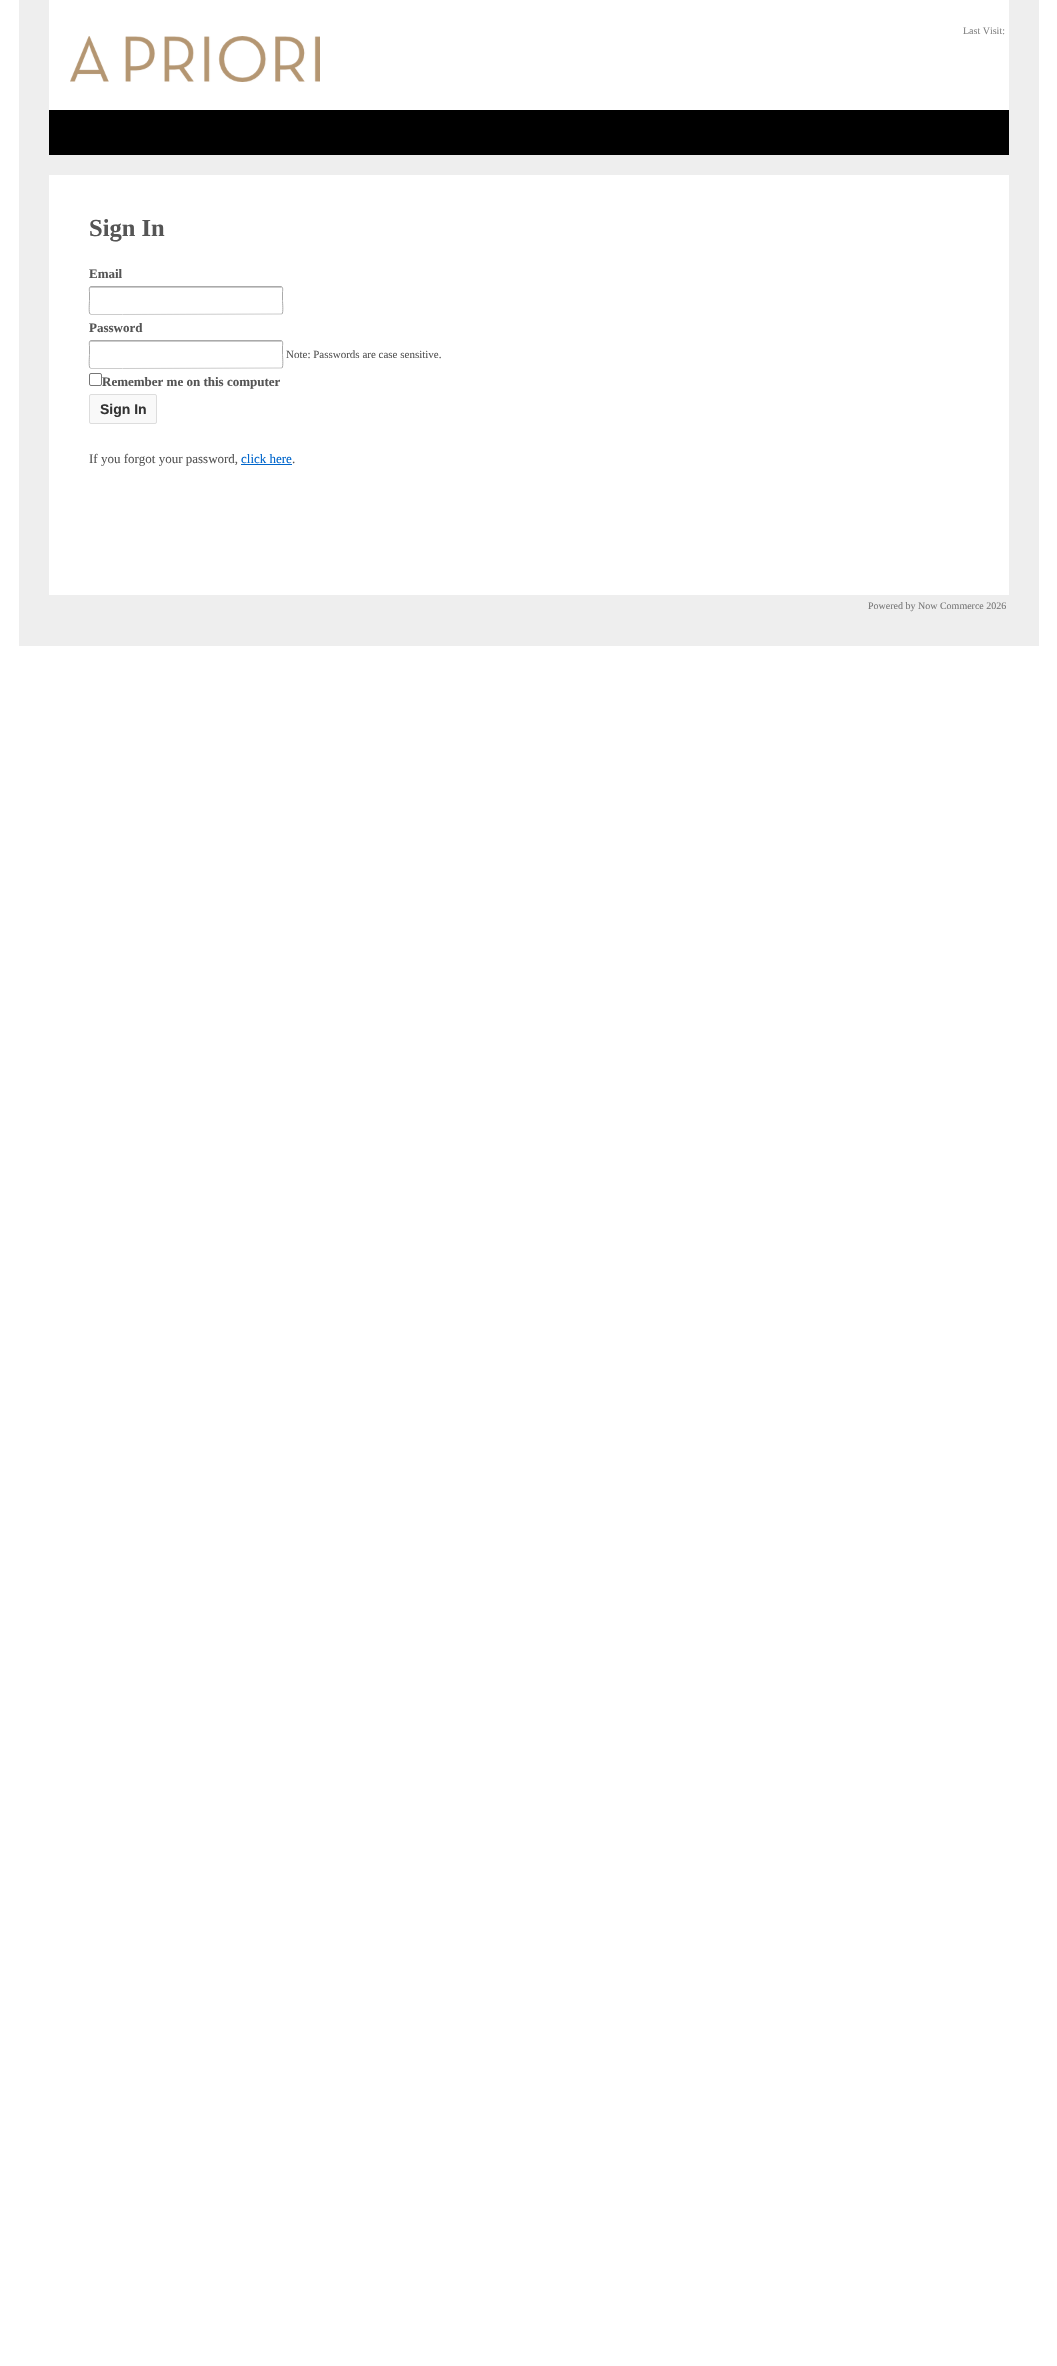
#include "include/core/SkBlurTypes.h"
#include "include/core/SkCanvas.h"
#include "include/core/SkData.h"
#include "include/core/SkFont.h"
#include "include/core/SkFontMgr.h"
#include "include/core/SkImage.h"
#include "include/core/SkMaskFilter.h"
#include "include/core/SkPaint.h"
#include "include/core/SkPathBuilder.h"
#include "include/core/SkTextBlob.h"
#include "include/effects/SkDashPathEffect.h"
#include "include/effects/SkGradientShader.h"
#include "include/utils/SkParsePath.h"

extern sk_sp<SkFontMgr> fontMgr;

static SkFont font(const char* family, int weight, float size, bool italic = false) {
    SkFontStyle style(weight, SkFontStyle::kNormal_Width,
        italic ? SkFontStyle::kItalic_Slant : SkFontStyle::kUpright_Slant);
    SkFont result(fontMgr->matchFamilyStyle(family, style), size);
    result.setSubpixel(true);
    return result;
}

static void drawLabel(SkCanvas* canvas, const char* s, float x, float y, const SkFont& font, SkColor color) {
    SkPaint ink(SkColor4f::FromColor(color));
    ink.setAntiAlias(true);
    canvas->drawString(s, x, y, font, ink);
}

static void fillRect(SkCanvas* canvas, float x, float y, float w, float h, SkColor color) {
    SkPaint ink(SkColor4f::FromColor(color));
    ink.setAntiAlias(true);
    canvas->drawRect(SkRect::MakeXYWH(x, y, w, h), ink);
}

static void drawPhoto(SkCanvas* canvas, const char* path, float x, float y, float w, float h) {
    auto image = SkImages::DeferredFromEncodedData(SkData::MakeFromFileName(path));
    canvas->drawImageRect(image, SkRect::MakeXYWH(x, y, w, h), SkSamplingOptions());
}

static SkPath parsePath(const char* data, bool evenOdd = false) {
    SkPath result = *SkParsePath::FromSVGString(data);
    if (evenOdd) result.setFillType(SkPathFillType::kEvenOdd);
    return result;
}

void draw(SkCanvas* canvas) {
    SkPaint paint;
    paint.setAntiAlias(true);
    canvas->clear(0xFFFFFFFF);
    fillRect(canvas, 1009, 0, 30, 616, 0xFFEEEEEE);
    fillRect(canvas, 49, 616, 990, 30, 0xFFEEEEEE);
    fillRect(canvas, 19, 0, 30, 646, 0xFFEEEEEE);
    SkFont font1 = font("Liberation Serif", 400, 10);
    drawLabel(canvas, "Last Visit:", 963, 34, font1, 0xFF808080);
    drawPhoto(canvas, "assets/img1.png", 70, 36, 250, 46);
    fillRect(canvas, 49, 110, 960, 45, 0xFF000000);
    fillRect(canvas, 49, 155, 960, 20, 0xFFEEEEEE);
    SkFont font2 = font("Liberation Serif", 700, 24.5f);
    drawLabel(canvas, "Sign In", 89, 236, font2, 0xFF555555);
    SkFont font3 = font("Liberation Serif", 700, 13);
    drawLabel(canvas, "Email", 89, 278, font3, 0xFF555555);
    paint.setColor(0xFFCCCCCC);
    canvas->drawPath(parsePath("M91 288H282V289C282 288 282 287 281 287H90V289C90 288 90 288 91 288Z"), paint);
    paint.setStroke(true);
    paint.setStrokeWidth(1);
    canvas->drawPath(parsePath("M282 314L122.5 314.5H91L90 314"), paint);
    paint.setColor(0xFFAAAAAA);
    canvas->drawPath(parsePath("M90 314C88.5 312.5 89.5 302.5 89.5 300.5V292C89.5 291.5 88.5 286.5 91 286.5H281C283.5 286.5 282.5 291.5 282.5 292V300.5C282.5 302.5 283.5 312.5 282 314"), paint);
    drawLabel(canvas, "Password", 89, 332, font3, 0xFF555555);
    paint.setStroke(false);
    paint.setColor(0xFFCCCCCC);
    canvas->drawPath(parsePath("M91 342H282V343C282 342 282 341 281 341H90V343C90 342 90 342 91 342Z"), paint);
    paint.setStroke(true);
    canvas->drawPath(parsePath("M282 368L122.5 368.5H91L90 368"), paint);
    paint.setColor(0xFFAAAAAA);
    canvas->drawPath(parsePath("M90 368C88.5 366.5 89.5 356.5 89.5 354.5V346C89.5 345.5 88.5 340.5 91 340.5H281C283.5 340.5 282.5 345.5 282.5 346V354.5C282.5 356.5 283.5 366.5 282 368"), paint);
    SkFont font4 = font("Liberation Serif", 400, 11);
    drawLabel(canvas, "Note: Passwords are case sensitive.", 286, 358, font4, 0xFF555555);
    paint.setColor(0xFF767676);
    canvas->drawRoundRect(SkRect::MakeXYWH(89.5f, 373.5f, 12, 12), 1.5f, 1.5f, paint);
    drawLabel(canvas, "Remember me on this computer", 102, 386, font3, 0xFF555555);
    paint.setStroke(false);
    paint.setColor(0xFFF9F9F9);
    canvas->drawRoundRect(SkRect::MakeXYWH(89.5f, 394.5f, 67, 29), 1.5f, 1.5f, paint);
    paint.setStroke(true);
    paint.setColor(0xFFDDDDDD);
    canvas->drawRoundRect(SkRect::MakeXYWH(89.5f, 394.5f, 67, 29), 1.5f, 1.5f, paint);
    SkFont font5 = font("Liberation Sans", 700, 14);
    drawLabel(canvas, "Sign In", 100, 414, font5, 0xFF333333);
    SkFont font6 = font("Liberation Serif", 400, 13);
    drawLabel(canvas, "If you forgot your password,", 89, 463, font6, 0xFF555555);
    drawLabel(canvas, "click here", 241, 463, font6, 0xFF0066CC);
    fillRect(canvas, 241, 464, 51, 1, 0xFF0066CC);
    drawLabel(canvas, ".", 292, 463, font6, 0xFF555555);
    fillRect(canvas, 49, 595, 960, 21, 0xFFEEEEEE);
    drawLabel(canvas, "Powered by Now Commerce 2026", 868, 609, font1, 0xFF777777);
}
